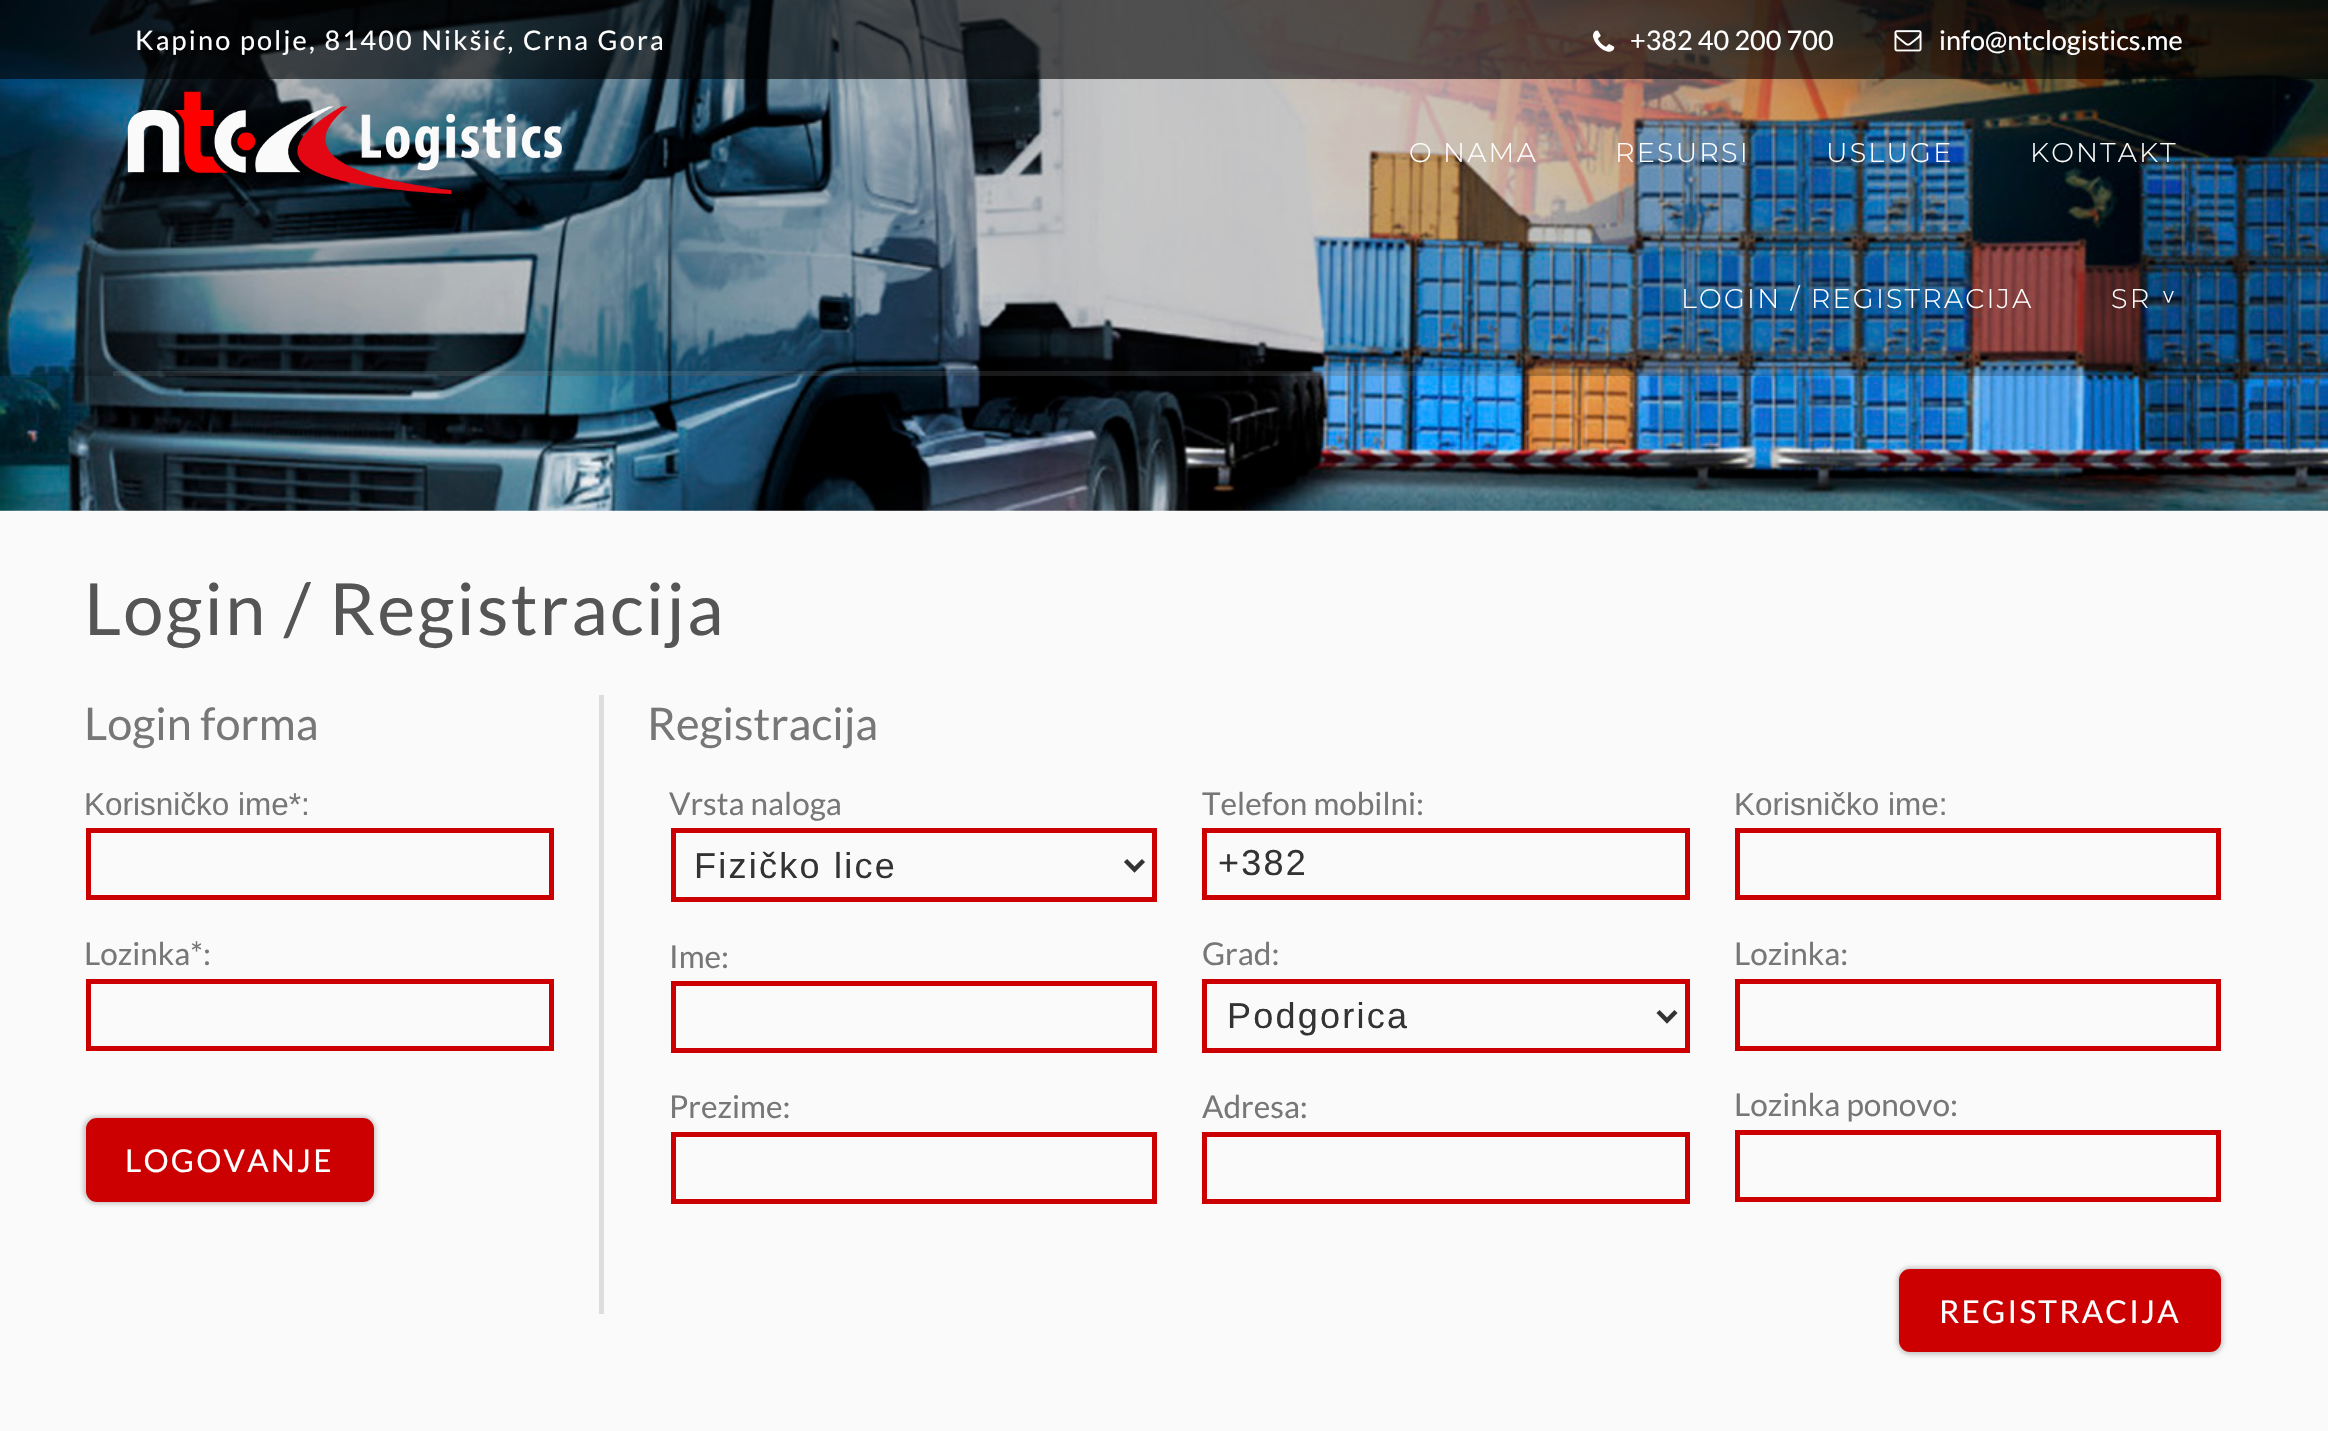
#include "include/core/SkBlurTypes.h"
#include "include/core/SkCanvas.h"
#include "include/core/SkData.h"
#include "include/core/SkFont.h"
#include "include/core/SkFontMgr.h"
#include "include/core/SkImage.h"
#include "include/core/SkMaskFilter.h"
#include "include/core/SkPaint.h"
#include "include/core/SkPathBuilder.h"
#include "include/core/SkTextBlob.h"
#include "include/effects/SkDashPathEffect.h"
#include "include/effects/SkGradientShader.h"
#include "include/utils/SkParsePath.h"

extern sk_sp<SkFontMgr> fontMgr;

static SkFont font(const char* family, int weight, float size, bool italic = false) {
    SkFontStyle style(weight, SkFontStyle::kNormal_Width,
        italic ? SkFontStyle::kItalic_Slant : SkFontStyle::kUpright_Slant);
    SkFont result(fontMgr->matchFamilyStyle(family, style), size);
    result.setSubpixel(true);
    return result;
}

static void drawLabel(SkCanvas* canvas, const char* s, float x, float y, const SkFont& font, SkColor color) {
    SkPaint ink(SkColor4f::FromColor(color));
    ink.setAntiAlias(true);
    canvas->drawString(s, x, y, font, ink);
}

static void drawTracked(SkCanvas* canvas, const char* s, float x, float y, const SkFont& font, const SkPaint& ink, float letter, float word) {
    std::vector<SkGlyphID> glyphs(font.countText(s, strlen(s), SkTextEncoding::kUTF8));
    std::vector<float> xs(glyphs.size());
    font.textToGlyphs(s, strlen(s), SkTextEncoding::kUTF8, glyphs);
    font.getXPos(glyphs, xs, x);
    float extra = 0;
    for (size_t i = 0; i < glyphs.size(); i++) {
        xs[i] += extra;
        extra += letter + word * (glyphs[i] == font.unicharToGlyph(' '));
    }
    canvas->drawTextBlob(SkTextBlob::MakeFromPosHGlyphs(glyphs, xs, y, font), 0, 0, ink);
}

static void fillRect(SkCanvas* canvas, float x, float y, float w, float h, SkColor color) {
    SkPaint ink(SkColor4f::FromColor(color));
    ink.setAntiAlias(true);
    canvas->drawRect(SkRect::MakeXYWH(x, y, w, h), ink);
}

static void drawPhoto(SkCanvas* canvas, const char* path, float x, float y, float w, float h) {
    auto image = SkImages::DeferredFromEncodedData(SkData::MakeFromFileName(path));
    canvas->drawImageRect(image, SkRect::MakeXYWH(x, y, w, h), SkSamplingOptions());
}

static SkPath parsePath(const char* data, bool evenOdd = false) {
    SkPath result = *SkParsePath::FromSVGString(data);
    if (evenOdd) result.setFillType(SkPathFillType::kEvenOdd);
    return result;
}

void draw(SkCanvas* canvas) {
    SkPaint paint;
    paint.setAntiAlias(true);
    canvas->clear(0xFFFAFAFA);
    drawPhoto(canvas, "assets/img1.png", 0, 0, 2328, 511);
    fillRect(canvas, 0, 0, 2328, 376, 0x33000000);
    fillRect(canvas, 0, 0, 1166, 79, 0x99000000);
    SkFont font1 = font("Lato", 400, 27);
    paint.setColor(0xFFFFFFFF);
    drawTracked(canvas, "Kapino polje, 81400 Nikšić, Crna Gora", 135, 50, font1, paint, 2.25f, 0);
    fillRect(canvas, 1166, 0, 1162, 79, 0x99000000);
    drawPhoto(canvas, "assets/img2.png", 1593, 30, 22, 22);
    drawLabel(canvas, "+382 40 200 700", 1630, 50, font1, 0xFFFFFFFF);
    drawPhoto(canvas, "assets/img3.png", 1894, 30, 28, 22);
    drawLabel(canvas, "info@ntclogistics.me", 1939, 50, font1, 0xFFFFFFFF);
    drawPhoto(canvas, "assets/img4.png", 127, 91, 435, 104);
    SkFont font2 = font("Montserrat", 300, 27);
    drawTracked(canvas, "O NAMA", 1409, 162, font2, paint, 2.25f, 0);
    drawTracked(canvas, "RESURSI", 1615, 162, font2, paint, 2.25f, 0);
    drawTracked(canvas, "USLUGE", 1826, 162, font2, paint, 2.25f, 0);
    drawTracked(canvas, "KONTAKT", 2030, 162, font2, paint, 2.25f, 0);
    drawTracked(canvas, "LOGIN / REGISTRACIJA", 1681, 308, font2, paint, 2.25f, 0);
    drawTracked(canvas, "SR", 2111, 308, font2, paint, 2.25f, 0);
    canvas->save();
    canvas->rotate(90, 2159, 289);
    drawTracked(canvas, ">", 2159, 289, font2, paint, 2.25f, 0);
    canvas->restore();
    fillRect(canvas, 113, 371, 1401, 5, 0x1AFFFFFF);
    SkFont font3 = font("Lato", 400, 72);
    paint.setColor(0xFF555555);
    drawTracked(canvas, "Login / Registracija", 84, 635, font3, paint, 2.25f, 0);
    fillRect(canvas, 599, 695, 5, 619, 0xFFDDDDDD);
    SkFont font4 = font("Lato", 400, 45);
    drawLabel(canvas, "Login forma", 84, 740, font4, 0xFF777777);
    SkFont font5 = font("Liberation Sans", 400, 31.5f);
    drawLabel(canvas, "Korisničko ime*:", 84, 815, font5, 0xFF777777);
    paint.setStroke(true);
    paint.setStrokeWidth(5);
    paint.setColor(0xFFCC0000);
    canvas->drawRect(SkRect::MakeXYWH(88.5f, 830.5f, 463, 67), paint);
    SkFont font6 = font("Lato", 400, 31.5f);
    drawLabel(canvas, "Lozinka*:", 84, 965, font6, 0xFF777777);
    canvas->drawRect(SkRect::MakeXYWH(88.5f, 981.5f, 463, 67), paint);
    paint.setStroke(false);
    paint.setColor(0x33000000);
    paint.setMaskFilter(SkMaskFilter::MakeBlur(kNormal_SkBlurStyle, 2));
    canvas->drawRoundRect(SkRect::MakeXYWH(83, 1116, 293, 88), 14, 14, paint);
    paint.setMaskFilter(nullptr);
    paint.setColor(0xFFCC0000);
    canvas->drawRoundRect(SkRect::MakeXYWH(88.5f, 1120.5f, 283, 79), 8.5f, 8.5f, paint);
    paint.setStroke(true);
    canvas->drawRoundRect(SkRect::MakeXYWH(88.5f, 1120.5f, 283, 79), 8.5f, 8.5f, paint);
    paint.setStroke(false);
    paint.setColor(0xFFFFFFFF);
    drawTracked(canvas, "LOGOVANJE", 125, 1172, font6, paint, 2.25f, 0);
    drawLabel(canvas, "Registracija", 647, 740, font4, 0xFF777777);
    drawLabel(canvas, "Vrsta naloga", 669, 815, font6, 0xFF777777);
    paint.setStroke(true);
    paint.setColor(0xFFCC0000);
    canvas->drawRect(SkRect::MakeXYWH(673.5f, 830.5f, 481, 69), paint);
    paint.setStrokeWidth(4.5f);
    paint.setColor(0xFF333333);
    canvas->drawPath(parsePath("M1125.5 860.5L1134.5 869.5L1143.5 860.5"), paint);
    SkFont font7 = font("Liberation Sans", 400, 36);
    paint.setStroke(false);
    drawTracked(canvas, "Fizičko lice", 694, 878, font7, paint, 2.25f, 0);
    drawLabel(canvas, "Ime:", 669, 968, font6, 0xFF777777);
    paint.setStroke(true);
    paint.setStrokeWidth(5);
    paint.setColor(0xFFCC0000);
    canvas->drawRect(SkRect::MakeXYWH(673.5f, 983.5f, 481, 67), paint);
    drawLabel(canvas, "Prezime:", 669, 1118, font6, 0xFF777777);
    canvas->drawRect(SkRect::MakeXYWH(673.5f, 1134.5f, 481, 67), paint);
    drawLabel(canvas, "Telefon mobilni:", 1202, 815, font6, 0xFF777777);
    canvas->drawRect(SkRect::MakeXYWH(1204.5f, 830.5f, 483, 67), paint);
    paint.setStroke(false);
    paint.setColor(0xFF333333);
    drawTracked(canvas, "+382", 1218, 875, font7, paint, 2.25f, 0);
    drawLabel(canvas, "Grad:", 1202, 965, font6, 0xFF777777);
    paint.setStroke(true);
    paint.setColor(0xFFCC0000);
    canvas->drawRect(SkRect::MakeXYWH(1204.5f, 981.5f, 483, 69), paint);
    paint.setStrokeWidth(4.5f);
    paint.setColor(0xFF333333);
    canvas->drawPath(parsePath("M1658 1011.5L1667 1020.5L1676 1011.5"), paint);
    paint.setStroke(false);
    drawTracked(canvas, "Podgorica", 1227, 1028, font7, paint, 2.25f, 0);
    drawLabel(canvas, "Adresa:", 1202, 1118, font6, 0xFF777777);
    paint.setStroke(true);
    paint.setStrokeWidth(5);
    paint.setColor(0xFFCC0000);
    canvas->drawRect(SkRect::MakeXYWH(1204.5f, 1134.5f, 483, 67), paint);
    drawLabel(canvas, "Korisničko ime:", 1734, 815, font5, 0xFF777777);
    canvas->drawRect(SkRect::MakeXYWH(1737.5f, 830.5f, 481, 67), paint);
    drawLabel(canvas, "Lozinka:", 1734, 965, font6, 0xFF777777);
    canvas->drawRect(SkRect::MakeXYWH(1737.5f, 981.5f, 481, 67), paint);
    drawLabel(canvas, "Lozinka ponovo:", 1734, 1116, font6, 0xFF777777);
    canvas->drawRect(SkRect::MakeXYWH(1737.5f, 1132.5f, 481, 67), paint);
    paint.setStroke(false);
    paint.setColor(0x33000000);
    paint.setMaskFilter(SkMaskFilter::MakeBlur(kNormal_SkBlurStyle, 2));
    canvas->drawRoundRect(SkRect::MakeXYWH(1897, 1267, 326, 88), 14, 14, paint);
    paint.setMaskFilter(nullptr);
    paint.setColor(0xFFCC0000);
    canvas->drawRoundRect(SkRect::MakeXYWH(1901.5f, 1271.5f, 317, 78), 8.5f, 8.5f, paint);
    paint.setStroke(true);
    canvas->drawRoundRect(SkRect::MakeXYWH(1901.5f, 1271.5f, 317, 78), 8.5f, 8.5f, paint);
    paint.setStroke(false);
    paint.setColor(0xFFFFFFFF);
    drawTracked(canvas, "REGISTRACIJA", 1939, 1323, font6, paint, 2.25f, 0);
}
